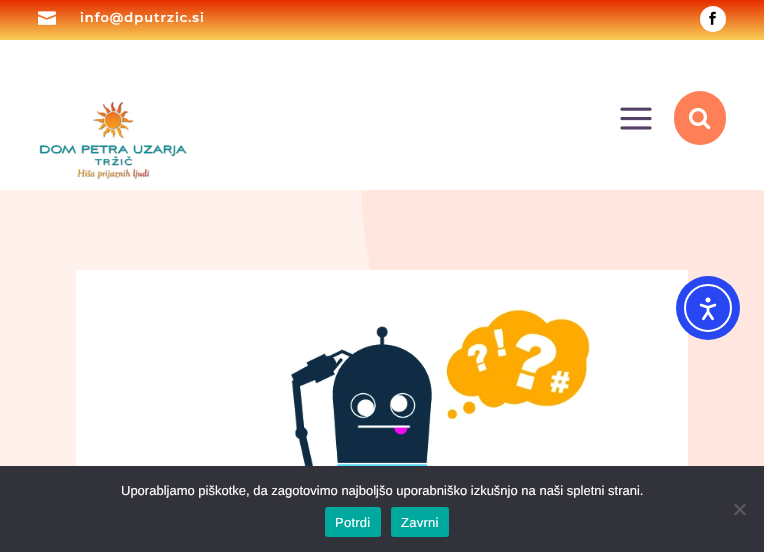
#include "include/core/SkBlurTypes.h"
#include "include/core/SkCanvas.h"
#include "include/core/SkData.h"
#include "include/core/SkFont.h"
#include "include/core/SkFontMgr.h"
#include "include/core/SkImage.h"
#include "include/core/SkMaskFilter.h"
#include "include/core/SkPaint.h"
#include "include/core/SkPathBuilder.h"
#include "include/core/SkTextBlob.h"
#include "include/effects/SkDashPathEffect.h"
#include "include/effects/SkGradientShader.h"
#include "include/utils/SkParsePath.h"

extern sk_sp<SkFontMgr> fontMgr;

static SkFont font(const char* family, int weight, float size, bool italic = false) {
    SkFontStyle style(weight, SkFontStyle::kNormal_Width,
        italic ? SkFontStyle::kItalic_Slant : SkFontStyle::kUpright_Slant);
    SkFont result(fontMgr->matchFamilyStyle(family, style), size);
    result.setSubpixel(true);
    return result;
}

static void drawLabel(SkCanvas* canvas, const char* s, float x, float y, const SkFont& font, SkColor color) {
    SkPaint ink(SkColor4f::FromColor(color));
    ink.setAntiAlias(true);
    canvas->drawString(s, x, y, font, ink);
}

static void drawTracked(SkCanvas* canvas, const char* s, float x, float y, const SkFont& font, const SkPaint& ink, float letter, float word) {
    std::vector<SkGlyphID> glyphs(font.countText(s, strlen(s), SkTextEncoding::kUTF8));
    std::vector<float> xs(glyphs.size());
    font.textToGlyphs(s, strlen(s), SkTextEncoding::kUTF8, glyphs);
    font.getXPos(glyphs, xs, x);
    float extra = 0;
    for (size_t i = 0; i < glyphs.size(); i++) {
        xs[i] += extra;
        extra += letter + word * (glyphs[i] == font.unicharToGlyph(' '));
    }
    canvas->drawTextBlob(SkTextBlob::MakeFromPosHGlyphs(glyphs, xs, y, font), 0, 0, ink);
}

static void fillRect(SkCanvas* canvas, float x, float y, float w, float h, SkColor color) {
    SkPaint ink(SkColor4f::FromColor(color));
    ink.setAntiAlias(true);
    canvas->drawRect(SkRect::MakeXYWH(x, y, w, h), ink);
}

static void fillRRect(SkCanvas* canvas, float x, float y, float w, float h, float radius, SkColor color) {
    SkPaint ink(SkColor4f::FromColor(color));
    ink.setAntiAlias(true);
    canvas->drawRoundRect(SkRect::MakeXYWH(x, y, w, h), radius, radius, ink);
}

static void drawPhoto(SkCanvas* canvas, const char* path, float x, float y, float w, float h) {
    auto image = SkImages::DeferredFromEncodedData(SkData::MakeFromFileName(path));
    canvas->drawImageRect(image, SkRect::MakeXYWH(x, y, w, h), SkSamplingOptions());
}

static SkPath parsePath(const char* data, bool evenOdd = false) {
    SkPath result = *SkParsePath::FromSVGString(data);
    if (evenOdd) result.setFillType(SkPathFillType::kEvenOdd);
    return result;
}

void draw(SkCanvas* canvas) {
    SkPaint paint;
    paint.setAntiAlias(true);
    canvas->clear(0xFFFFFFFF);
    {
        const SkColor colors[] = {0xFFE52D00, 0xFFF7CE54};
        const float stops[] = {0.01f, 1};
        const SkPoint ends[] = {{382, 0}, {382, 40}};
        paint.setShader(SkGradientShader::MakeLinear(ends, colors, stops, 2, SkTileMode::kClamp));
        paint.setAlpha(255);
    }
    canvas->drawRect(SkRect::MakeXYWH(0, 0, 764, 40), paint);
    drawPhoto(canvas, "assets/img1.png", 38, 11, 18, 14);
    SkFont font1 = font("Montserrat", 100, 13);
    paint.setShader(nullptr);
    paint.setColor(0xFFFFFFFF);
    drawTracked(canvas, "info@dputrzic.si", 80, 22, font1, paint, 1, 0);
    canvas->drawCircle(713, 19, 13, paint);
    drawPhoto(canvas, "assets/img2.png", 709, 11, 7, 14);
    drawPhoto(canvas, "assets/img3.png", 39, 101, 148, 79);
    drawPhoto(canvas, "assets/img4.png", 620, 107, 32, 23);
    fillRRect(canvas, 674, 91, 52, 54, 26, 0xFFFF8057);
    drawPhoto(canvas, "assets/img5.png", 689, 107, 22, 23);
    drawPhoto(canvas, "assets/img6.png", 0, 190, 764, 276);
    drawPhoto(canvas, "assets/img7.png", 76, 270, 612, 196);
    paint.setColor(0xFF2847F3);
    canvas->drawCircle(708, 308, 32, paint);
    paint.setStroke(true);
    paint.setStrokeWidth(2);
    paint.setColor(0xFFFFFFFF);
    canvas->drawCircle(708, 308, 23, paint);
    drawPhoto(canvas, "assets/img8.png", 699, 297, 18, 24);
    fillRect(canvas, 0, 466, 764, 86, 0xFF32323A);
    SkFont font2 = font("Liberation Sans", 400, 13);
    drawLabel(canvas, "Uporabljamo piškotke, da zagotovimo najboljšo uporabniško izkušnjo na naši spletni strani.", 121, 495, font2, 0xFFFFFFFF);
    paint.setStroke(false);
    paint.setColor(0xFF59595D);
    canvas->drawPath(parsePath("M744.5 503.5L746 505L735.5 515.5L734 514Z"), paint);
    canvas->drawPath(parsePath("M734 505L735.5 503.5L746 514L744.5 515.5Z"), paint);
    fillRRect(canvas, 325, 507, 56, 30, 3, 0xFF00A99D);
    paint.setColor(0xFFFFFFFF);
    drawTracked(canvas, "Potrdi", 335, 527, font2, paint, 0.25f, 0);
    fillRRect(canvas, 391, 507, 58, 30, 3, 0xFF00A99D);
    drawTracked(canvas, "Zavrni", 401, 527, font2, paint, 0.25f, 0);
}
